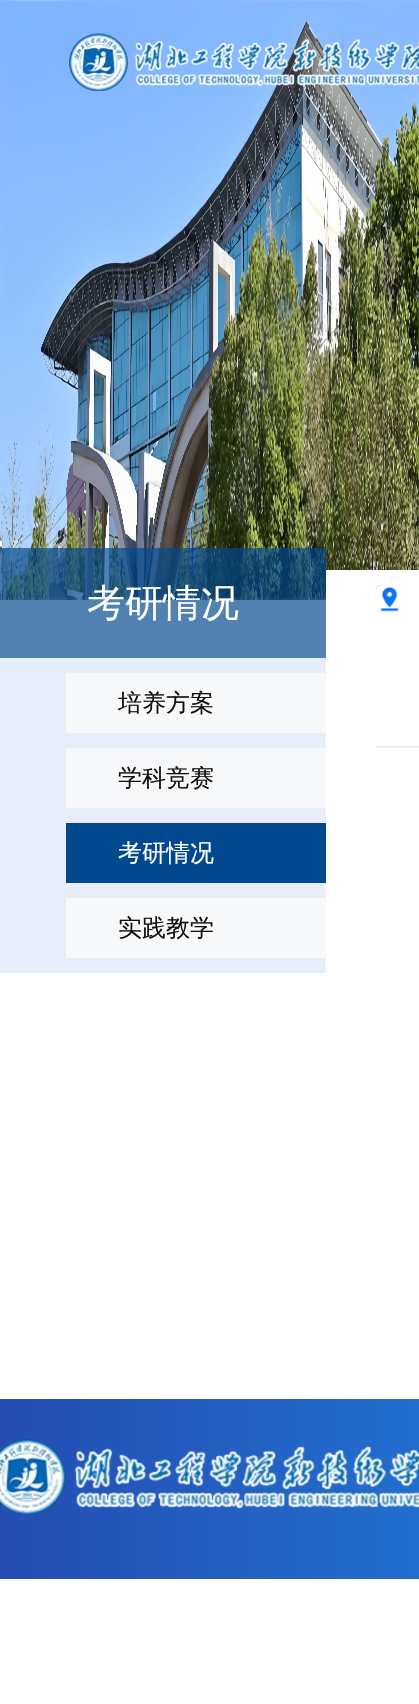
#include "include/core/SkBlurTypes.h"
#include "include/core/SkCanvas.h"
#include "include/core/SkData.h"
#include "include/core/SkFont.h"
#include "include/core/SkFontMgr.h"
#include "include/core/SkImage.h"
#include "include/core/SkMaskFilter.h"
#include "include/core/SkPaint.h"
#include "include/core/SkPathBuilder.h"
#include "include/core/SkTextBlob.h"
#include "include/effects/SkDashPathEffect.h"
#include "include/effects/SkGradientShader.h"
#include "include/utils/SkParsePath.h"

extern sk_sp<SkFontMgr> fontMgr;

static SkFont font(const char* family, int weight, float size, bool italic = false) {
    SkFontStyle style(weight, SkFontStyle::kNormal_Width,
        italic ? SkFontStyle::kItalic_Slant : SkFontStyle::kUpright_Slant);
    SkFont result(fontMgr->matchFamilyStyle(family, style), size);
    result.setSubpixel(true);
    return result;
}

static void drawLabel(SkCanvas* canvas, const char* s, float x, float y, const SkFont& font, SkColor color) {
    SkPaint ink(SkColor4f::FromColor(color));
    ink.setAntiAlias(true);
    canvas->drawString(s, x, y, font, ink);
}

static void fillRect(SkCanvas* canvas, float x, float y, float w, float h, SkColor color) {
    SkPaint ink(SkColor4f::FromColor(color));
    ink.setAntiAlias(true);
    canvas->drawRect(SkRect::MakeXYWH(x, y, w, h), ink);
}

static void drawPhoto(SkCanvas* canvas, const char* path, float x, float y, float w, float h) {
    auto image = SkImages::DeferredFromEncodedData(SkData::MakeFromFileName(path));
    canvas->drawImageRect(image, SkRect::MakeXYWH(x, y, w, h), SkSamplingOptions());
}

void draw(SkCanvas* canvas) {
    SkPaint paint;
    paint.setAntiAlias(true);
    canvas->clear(0xFFFFFFFF);
    drawPhoto(canvas, "assets/img1.png", 0, 0, 419, 600);
    drawPhoto(canvas, "assets/img2.png", 69, 33, 350, 58);
    fillRect(canvas, 0, 548, 326, 110, 0xB001488E);
    SkFont font1 = font("WenQuanYi Zen Hei", 500, 38);
    drawLabel(canvas, "考研情况", 87, 616, font1, 0xFFFFFFFF);
    fillRect(canvas, 0, 658, 326, 315, 0xFFE7EEFA);
    fillRect(canvas, 66, 673, 260, 60, 0xFFF7F8FA);
    SkFont font2 = font("WenQuanYi Zen Hei", 500, 24);
    drawLabel(canvas, "培养方案", 118, 711, font2, 0xFF101010);
    fillRect(canvas, 66, 748, 260, 60, 0xFFF7F8FA);
    drawLabel(canvas, "学科竞赛", 118, 786, font2, 0xFF101010);
    fillRect(canvas, 66, 823, 260, 60, 0xFF01488E);
    drawLabel(canvas, "考研情况", 118, 861, font2, 0xFFFFFFFF);
    fillRect(canvas, 66, 898, 260, 60, 0xFFF7F8FA);
    drawLabel(canvas, "实践教学", 118, 936, font2, 0xFF101010);
    fillRect(canvas, 326, 570, 93, 30, 0xFFFFFFFF);
    drawPhoto(canvas, "assets/img3.png", 376, 585, 23, 27);
    fillRect(canvas, 376, 746, 43, 2, 0xFFEEEEEE);
    {
        const SkColor colors[] = {0xFF254DB2, 0xFF216ECE};
        const float stops[] = {0, 1};
        const SkPoint ends[] = {{0, 1489}, {419, 1489}};
        paint.setShader(SkGradientShader::MakeLinear(ends, colors, stops, 2, SkTileMode::kClamp));
        paint.setAlpha(255);
    }
    canvas->drawRect(SkRect::MakeXYWH(0, 1399, 419, 180), paint);
    drawPhoto(canvas, "assets/img4.png", 0, 1439, 419, 76);
}
